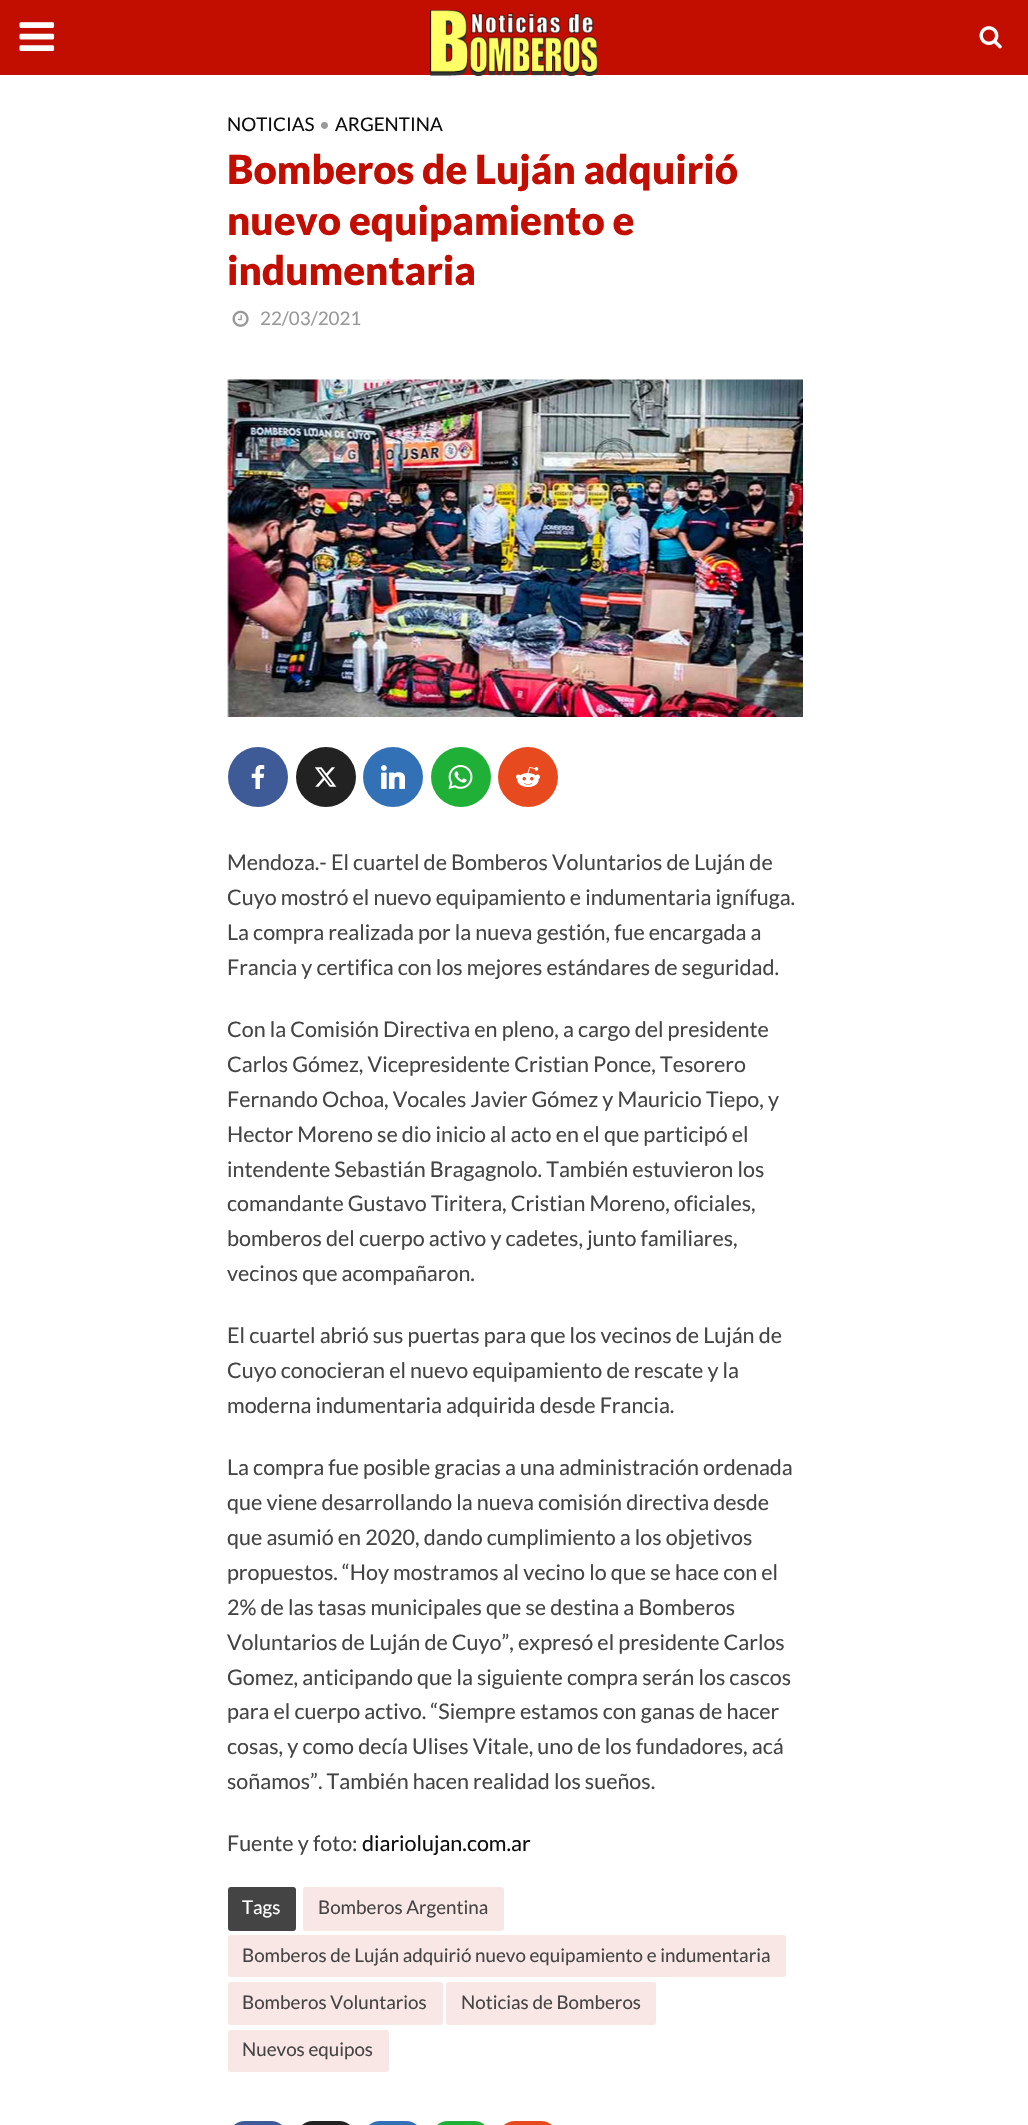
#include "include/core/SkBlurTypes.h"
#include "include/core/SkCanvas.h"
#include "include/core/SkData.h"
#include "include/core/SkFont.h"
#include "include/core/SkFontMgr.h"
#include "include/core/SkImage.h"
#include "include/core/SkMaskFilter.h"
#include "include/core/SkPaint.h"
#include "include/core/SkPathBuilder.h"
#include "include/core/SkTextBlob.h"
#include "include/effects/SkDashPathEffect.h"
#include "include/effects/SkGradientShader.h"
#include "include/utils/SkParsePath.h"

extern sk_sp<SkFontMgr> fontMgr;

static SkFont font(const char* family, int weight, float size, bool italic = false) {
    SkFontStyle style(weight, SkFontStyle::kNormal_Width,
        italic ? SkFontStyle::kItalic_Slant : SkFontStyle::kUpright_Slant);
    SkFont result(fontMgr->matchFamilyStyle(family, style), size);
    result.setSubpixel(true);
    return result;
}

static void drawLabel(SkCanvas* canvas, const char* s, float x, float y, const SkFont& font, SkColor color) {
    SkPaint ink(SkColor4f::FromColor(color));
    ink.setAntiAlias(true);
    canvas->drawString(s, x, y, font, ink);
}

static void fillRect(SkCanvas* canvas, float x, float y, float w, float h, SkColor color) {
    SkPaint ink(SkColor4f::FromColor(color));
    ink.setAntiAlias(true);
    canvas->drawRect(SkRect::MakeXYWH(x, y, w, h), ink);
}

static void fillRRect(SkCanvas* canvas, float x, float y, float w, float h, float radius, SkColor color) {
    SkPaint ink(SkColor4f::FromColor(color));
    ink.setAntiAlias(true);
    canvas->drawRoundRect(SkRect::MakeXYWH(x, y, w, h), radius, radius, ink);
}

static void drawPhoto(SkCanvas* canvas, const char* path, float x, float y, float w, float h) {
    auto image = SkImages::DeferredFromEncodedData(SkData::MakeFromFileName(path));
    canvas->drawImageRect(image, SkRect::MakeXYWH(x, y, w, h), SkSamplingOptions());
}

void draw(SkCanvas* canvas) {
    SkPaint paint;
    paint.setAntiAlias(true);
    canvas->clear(0xFFFFFFFF);
    fillRect(canvas, 0, 0, 1028, 75, 0xFFC10E01);
    drawPhoto(canvas, "assets/img1.png", 19, 22, 36, 29);
    drawPhoto(canvas, "assets/img2.png", 430, 10, 169, 66);
    drawPhoto(canvas, "assets/img3.png", 979, 26, 23, 23);
    SkFont font1 = font("Lato", 400, 18.8f);
    drawLabel(canvas, "NOTICIAS", 227, 131, font1, 0xFF0E0E0E);
    drawLabel(canvas, "•", 319, 131, font1, 0xFF999999);
    drawLabel(canvas, "ARGENTINA", 335, 131, font1, 0xFF0E0E0E);
    SkFont font2 = font("Lato", 900, 40.25f);
    drawLabel(canvas, "Bomberos de Luján adquirió", 227, 184, font2, 0xFFC10E01);
    drawLabel(canvas, "nuevo equipamiento e", 227, 235, font2, 0xFFC10E01);
    drawLabel(canvas, "indumentaria", 227, 285, font2, 0xFFC10E01);
    drawPhoto(canvas, "assets/img4.png", 232, 310, 17, 17);
    drawLabel(canvas, "22/03/2021", 260, 325, font1, 0xFF999999);
    drawPhoto(canvas, "assets/img5.png", 227, 379, 576, 338);
    paint.setColor(0xFF3E5B98);
    canvas->drawCircle(258, 777, 30, paint);
    drawPhoto(canvas, "assets/img6.png", 251, 765, 14, 24);
    paint.setColor(0xFF222222);
    canvas->drawCircle(326, 777, 30, paint);
    drawPhoto(canvas, "assets/img7.png", 314, 767, 23, 20);
    paint.setColor(0xFF3371B7);
    canvas->drawCircle(393, 777, 30, paint);
    drawPhoto(canvas, "assets/img8.png", 381, 765, 24, 24);
    paint.setColor(0xFF20B038);
    canvas->drawCircle(461, 777, 30, paint);
    drawPhoto(canvas, "assets/img9.png", 448, 765, 25, 24);
    paint.setColor(0xFFE74A1E);
    canvas->drawCircle(528, 777, 30, paint);
    drawPhoto(canvas, "assets/img10.png", 516, 767, 24, 20);
    SkFont font3 = font("Lato", 400, 21.5f);
    drawLabel(canvas, "Mendoza.- El cuartel de Bomberos Voluntarios de Luján de", 227, 870, font3, 0xFF444444);
    drawLabel(canvas, "Cuyo mostró el nuevo equipamiento e indumentaria ignífuga.", 227, 905, font3, 0xFF444444);
    drawLabel(canvas, "La compra realizada por la nueva gestión, fue encargada a", 227, 940, font3, 0xFF444444);
    drawLabel(canvas, "Francia y certifica con los mejores estándares de seguridad.", 227, 975, font3, 0xFF444444);
    drawLabel(canvas, "Con la Comisión Directiva en pleno, a cargo del presidente", 227, 1037, font3, 0xFF444444);
    drawLabel(canvas, "Carlos Gómez, Vicepresidente Cristian Ponce, Tesorero", 227, 1072, font3, 0xFF444444);
    drawLabel(canvas, "Fernando Ochoa, Vocales Javier Gómez y Mauricio Tiepo, y", 227, 1107, font3, 0xFF444444);
    drawLabel(canvas, "Hector Moreno se dio inicio al acto en el que participó el", 227, 1142, font3, 0xFF444444);
    drawLabel(canvas, "intendente Sebastián Bragagnolo. También estuvieron los", 227, 1177, font3, 0xFF444444);
    drawLabel(canvas, "comandante Gustavo Tiritera, Cristian Moreno, oficiales,", 227, 1211, font3, 0xFF444444);
    drawLabel(canvas, "bomberos del cuerpo activo y cadetes, junto familiares,", 227, 1246, font3, 0xFF444444);
    drawLabel(canvas, "vecinos que acompañaron.", 227, 1281, font3, 0xFF444444);
    drawLabel(canvas, "El cuartel abrió sus puertas para que los vecinos de Luján de", 227, 1343, font3, 0xFF444444);
    drawLabel(canvas, "Cuyo conocieran el nuevo equipamiento de rescate y la", 227, 1378, font3, 0xFF444444);
    drawLabel(canvas, "moderna indumentaria adquirida desde Francia.", 227, 1413, font3, 0xFF444444);
    drawLabel(canvas, "La compra fue posible gracias a una administración ordenada", 227, 1475, font3, 0xFF444444);
    drawLabel(canvas, "que viene desarrollando la nueva comisión directiva desde", 227, 1510, font3, 0xFF444444);
    drawLabel(canvas, "que asumió en 2020, dando cumplimiento a los objetivos", 227, 1545, font3, 0xFF444444);
    drawLabel(canvas, "propuestos. “Hoy mostramos al vecino lo que se hace con el", 227, 1580, font3, 0xFF444444);
    drawLabel(canvas, "2% de las tasas municipales que se destina a Bomberos", 227, 1615, font3, 0xFF444444);
    drawLabel(canvas, "Voluntarios de Luján de Cuyo”, expresó el presidente Carlos", 227, 1650, font3, 0xFF444444);
    drawLabel(canvas, "Gomez, anticipando que la siguiente compra serán los cascos", 227, 1685, font3, 0xFF444444);
    drawLabel(canvas, "para el cuerpo activo. “Siempre estamos con ganas de hacer", 227, 1719, font3, 0xFF444444);
    drawLabel(canvas, "cosas, y como decía Ulises Vitale, uno de los fundadores, acá", 227, 1754, font3, 0xFF444444);
    drawLabel(canvas, "soñamos”. También hacen realidad los sueños.", 227, 1789, font3, 0xFF444444);
    drawLabel(canvas, "Fuente y foto:", 227, 1851, font3, 0xFF444444);
    drawLabel(canvas, "diariolujan.com.ar", 362, 1851, font3, 0xFF0E0E0E);
    fillRRect(canvas, 228, 1887, 68, 44, 3, 0xFF444444);
    drawLabel(canvas, "Tags", 242, 1914, font1, 0xFFFFFFFF);
    fillRRect(canvas, 303, 1887, 201, 44, 3, 0xFFF9E7E6);
    drawLabel(canvas, "Bomberos Argentina", 318, 1914, font1, 0xFF444444);
    fillRRect(canvas, 228, 1935, 558, 42, 3, 0xFFF9E7E6);
    drawLabel(canvas, "Bomberos de Luján adquirió nuevo equipamiento e indumentaria", 242, 1962, font1, 0xFF444444);
    fillRRect(canvas, 228, 1982, 215, 43, 3, 0xFFF9E7E6);
    drawLabel(canvas, "Bomberos Voluntarios", 242, 2009, font1, 0xFF444444);
    fillRRect(canvas, 446, 1982, 210, 43, 3, 0xFFF9E7E6);
    drawLabel(canvas, "Noticias de Bomberos", 461, 2009, font1, 0xFF444444);
    fillRRect(canvas, 228, 2030, 161, 42, 3, 0xFFF9E7E6);
    drawLabel(canvas, "Nuevos equipos", 242, 2056, font1, 0xFF444444);
    fillRRect(canvas, 228, 2121, 60, 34, 30, 0xFF3E5B98);
    fillRRect(canvas, 296, 2121, 60, 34, 30, 0xFF222222);
    fillRRect(canvas, 363, 2121, 60, 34, 30, 0xFF3371B7);
    fillRRect(canvas, 431, 2121, 60, 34, 30, 0xFF20B038);
    fillRRect(canvas, 498, 2121, 60, 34, 30, 0xFFE74A1E);
}
